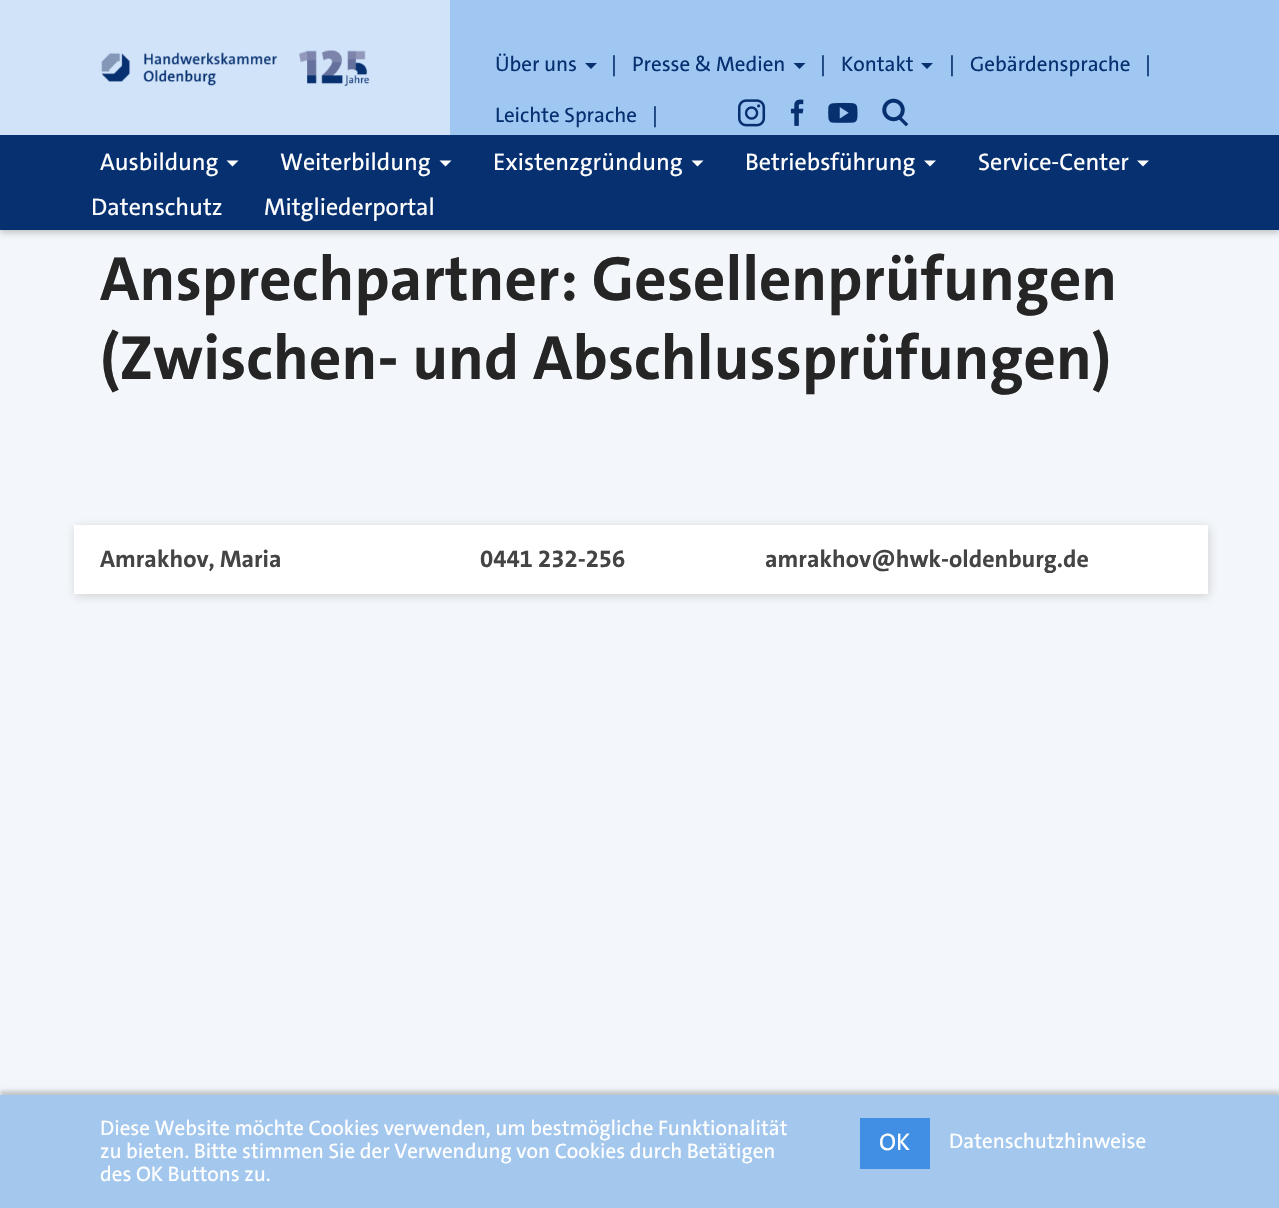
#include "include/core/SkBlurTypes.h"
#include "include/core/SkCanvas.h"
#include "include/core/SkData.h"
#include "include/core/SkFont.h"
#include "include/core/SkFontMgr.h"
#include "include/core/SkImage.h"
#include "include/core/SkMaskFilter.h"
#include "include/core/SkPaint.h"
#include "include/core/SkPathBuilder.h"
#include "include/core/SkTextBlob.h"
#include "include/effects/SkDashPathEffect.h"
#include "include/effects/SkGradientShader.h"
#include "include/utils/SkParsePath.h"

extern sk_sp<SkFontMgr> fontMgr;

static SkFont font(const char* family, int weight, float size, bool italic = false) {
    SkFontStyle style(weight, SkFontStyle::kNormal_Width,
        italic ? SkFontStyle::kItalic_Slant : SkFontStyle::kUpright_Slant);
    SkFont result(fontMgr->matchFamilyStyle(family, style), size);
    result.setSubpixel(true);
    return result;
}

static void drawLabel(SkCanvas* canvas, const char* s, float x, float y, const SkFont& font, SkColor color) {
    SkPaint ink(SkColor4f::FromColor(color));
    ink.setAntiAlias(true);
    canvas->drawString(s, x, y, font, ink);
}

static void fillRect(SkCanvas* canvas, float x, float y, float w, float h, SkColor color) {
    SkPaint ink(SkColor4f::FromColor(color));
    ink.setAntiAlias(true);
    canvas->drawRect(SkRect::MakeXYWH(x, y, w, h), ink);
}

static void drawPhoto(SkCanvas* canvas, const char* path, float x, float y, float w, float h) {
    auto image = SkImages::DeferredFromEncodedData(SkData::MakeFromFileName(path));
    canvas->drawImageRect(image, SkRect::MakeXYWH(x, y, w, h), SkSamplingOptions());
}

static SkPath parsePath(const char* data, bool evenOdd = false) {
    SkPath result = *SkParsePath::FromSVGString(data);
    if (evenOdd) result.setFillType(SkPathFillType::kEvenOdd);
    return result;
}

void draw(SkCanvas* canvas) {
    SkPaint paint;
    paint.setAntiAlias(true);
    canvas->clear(0xFFF3F6FA);
    paint.setColor(0x33000000);
    paint.setMaskFilter(SkMaskFilter::MakeBlur(kNormal_SkBlurStyle, 3));
    canvas->drawRect(SkRect::MakeXYWH(0, 3, 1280, 230), paint);
    paint.setMaskFilter(nullptr);
    fillRect(canvas, 0, 135, 1279, 95, 0xFF073070);
    fillRect(canvas, 450, 0, 829, 135, 0xFFA0C7F2);
    fillRect(canvas, 0, 0, 450, 135, 0xFFD0E3F9);
    drawPhoto(canvas, "assets/img1.png", 101, 50, 269, 36);
    SkFont font1 = font("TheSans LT", 400, 21);
    drawLabel(canvas, "Über uns", 495, 71, font1, 0xFF073070);
    paint.setColor(0xFF073070);
    canvas->drawPath(parsePath("M585 63H597L591 69Z"), paint);
    drawLabel(canvas, "|", 611, 71, font1, 0xFF073070);
    drawLabel(canvas, "Presse & Medien", 632, 71, font1, 0xFF073070);
    canvas->drawPath(parsePath("M793.5 63H805.5L799.5 69Z"), paint);
    drawLabel(canvas, "|", 820, 71, font1, 0xFF073070);
    drawLabel(canvas, "Kontakt", 841, 71, font1, 0xFF073070);
    canvas->drawPath(parsePath("M921 63H933L927 69Z"), paint);
    drawLabel(canvas, "|", 949, 71, font1, 0xFF073070);
    drawLabel(canvas, "Gebärdensprache", 970, 71, font1, 0xFF073070);
    drawLabel(canvas, "|", 1145, 71, font1, 0xFF073070);
    drawLabel(canvas, "Leichte Sprache", 495, 122, font1, 0xFF073070);
    drawLabel(canvas, "|", 652, 122, font1, 0xFF073070);
    drawPhoto(canvas, "assets/img2.png", 738, 99, 28, 28);
    drawPhoto(canvas, "assets/img3.png", 790, 99, 14, 27);
    drawPhoto(canvas, "assets/img4.png", 828, 102, 30, 21);
    drawPhoto(canvas, "assets/img5.png", 882, 98, 27, 29);
    SkFont font2 = font("TheSans LT", 400, 24);
    drawLabel(canvas, "Ausbildung", 100, 170, font2, 0xFFFFFFFF);
    paint.setColor(0xFFFFFFFF);
    canvas->drawPath(parsePath("M226.5 160.5H238.5L232.5 166.5Z"), paint);
    drawLabel(canvas, "Weiterbildung", 280, 170, font2, 0xFFFFFFFF);
    canvas->drawPath(parsePath("M439.5 160.5H451.5L445.5 166.5Z"), paint);
    drawLabel(canvas, "Existenzgründung", 493, 170, font2, 0xFFFFFFFF);
    canvas->drawPath(parsePath("M691.5 160.5H703.5L697.5 166.5Z"), paint);
    drawLabel(canvas, "Betriebsführung", 745, 170, font2, 0xFFFFFFFF);
    canvas->drawPath(parsePath("M924 160.5H936L930 166.5Z"), paint);
    drawLabel(canvas, "Service-Center", 978, 170, font2, 0xFFFFFFFF);
    canvas->drawPath(parsePath("M1137 160.5H1149L1143 166.5Z"), paint);
    drawLabel(canvas, "Datenschutz", 91, 215, font2, 0xFFFFFFFF);
    drawLabel(canvas, "Mitgliederportal", 264, 215, font2, 0xFFFFFFFF);
    SkFont font3 = font("TheSans LT", 700, 63);
    drawLabel(canvas, "Ansprechpartner: Gesellenprüfungen", 100, 300, font3, 0xFF252525);
    drawLabel(canvas, "(Zwischen- und Abschlussprüfungen)", 100, 379, font3, 0xFF252525);
    paint.setColor(0x4D7F7F7F);
    paint.setMaskFilter(SkMaskFilter::MakeBlur(kNormal_SkBlurStyle, 4.5f));
    canvas->drawRect(SkRect::MakeXYWH(75, 527, 1134, 69), paint);
    paint.setMaskFilter(nullptr);
    fillRect(canvas, 74, 525, 1134, 69, 0xFFFFFFFF);
    SkFont font4 = font("TheSans LT", 700, 24);
    drawLabel(canvas, "Amrakhov, Maria", 100, 567, font4, 0xFF444444);
    drawLabel(canvas, "0441 232-256", 480, 567, font4, 0xFF444444);
    drawLabel(canvas, "amrakhov@hwk-oldenburg.de", 765, 567, font4, 0xFF444444);
    paint.setColor(0x33000000);
    paint.setMaskFilter(SkMaskFilter::MakeBlur(kNormal_SkBlurStyle, 2));
    canvas->drawRect(SkRect::MakeXYWH(0, 1091, 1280, 114), paint);
    paint.setMaskFilter(nullptr);
    fillRect(canvas, 0, 1095, 1279, 113, 0xFFA3C7ED);
    drawLabel(canvas, "Diese Website möchte Cookies verwenden, um bestmögliche Funktionalität", 100, 1135, font1, 0xFFFFFFFF);
    drawLabel(canvas, "zu bieten. Bitte stimmen Sie der Verwendung von Cookies durch Betätigen", 100, 1158, font1, 0xFFFFFFFF);
    drawLabel(canvas, "des OK Buttons zu.", 100, 1181, font1, 0xFFFFFFFF);
    fillRect(canvas, 860, 1118, 70, 51, 0xFF408FE5);
    drawLabel(canvas, "OK", 879, 1150, font2, 0xFFFFFFFF);
    drawLabel(canvas, "Datenschutzhinweise", 949, 1148, font1, 0xFFFFFFFF);
}
